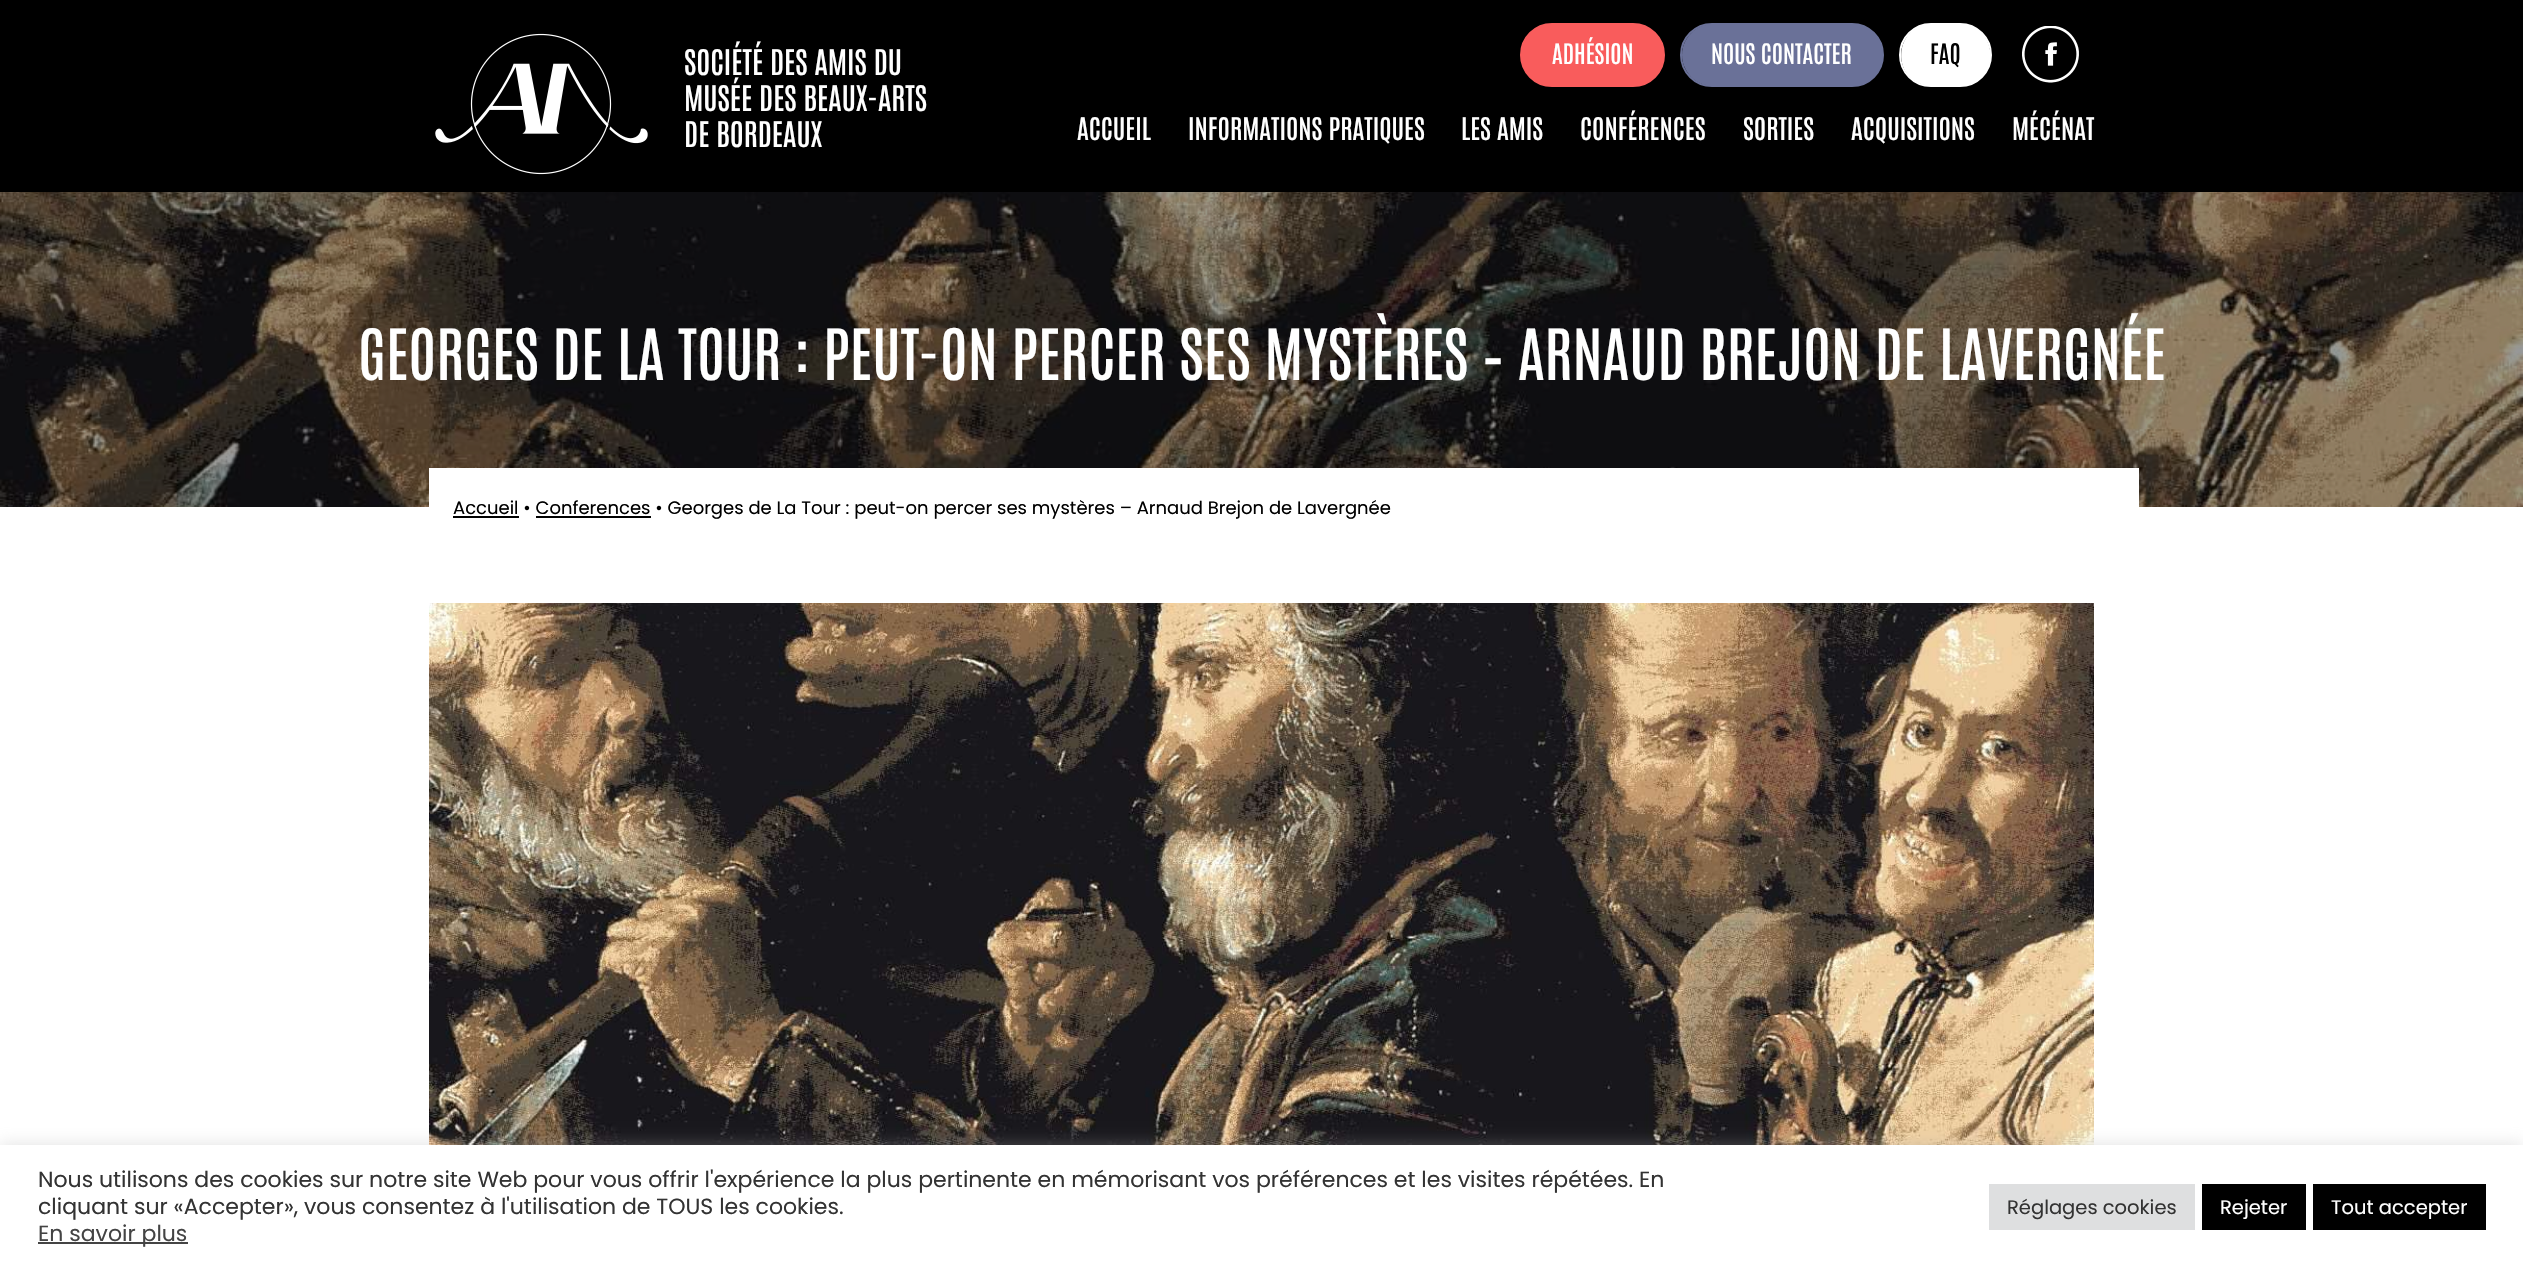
#include "include/core/SkBlurTypes.h"
#include "include/core/SkCanvas.h"
#include "include/core/SkData.h"
#include "include/core/SkFont.h"
#include "include/core/SkFontMgr.h"
#include "include/core/SkImage.h"
#include "include/core/SkMaskFilter.h"
#include "include/core/SkPaint.h"
#include "include/core/SkPathBuilder.h"
#include "include/core/SkTextBlob.h"
#include "include/effects/SkDashPathEffect.h"
#include "include/effects/SkGradientShader.h"
#include "include/utils/SkParsePath.h"

extern sk_sp<SkFontMgr> fontMgr;

static SkFont font(const char* family, int weight, float size, bool italic = false) {
    SkFontStyle style(weight, SkFontStyle::kNormal_Width,
        italic ? SkFontStyle::kItalic_Slant : SkFontStyle::kUpright_Slant);
    SkFont result(fontMgr->matchFamilyStyle(family, style), size);
    result.setSubpixel(true);
    return result;
}

static void drawLabel(SkCanvas* canvas, const char* s, float x, float y, const SkFont& font, SkColor color) {
    SkPaint ink(SkColor4f::FromColor(color));
    ink.setAntiAlias(true);
    canvas->drawString(s, x, y, font, ink);
}

static void fillRect(SkCanvas* canvas, float x, float y, float w, float h, SkColor color) {
    SkPaint ink(SkColor4f::FromColor(color));
    ink.setAntiAlias(true);
    canvas->drawRect(SkRect::MakeXYWH(x, y, w, h), ink);
}

static void drawPhoto(SkCanvas* canvas, const char* path, float x, float y, float w, float h) {
    auto image = SkImages::DeferredFromEncodedData(SkData::MakeFromFileName(path));
    canvas->drawImageRect(image, SkRect::MakeXYWH(x, y, w, h), SkSamplingOptions());
}

static SkPath parsePath(const char* data, bool evenOdd = false) {
    SkPath result = *SkParsePath::FromSVGString(data);
    if (evenOdd) result.setFillType(SkPathFillType::kEvenOdd);
    return result;
}

void draw(SkCanvas* canvas) {
    SkPaint paint;
    paint.setAntiAlias(true);
    canvas->clear(0xFFFFFFFF);
    fillRect(canvas, 0, 0, 2523, 192, 0xFF000000);
    drawPhoto(canvas, "assets/img1.png", 435, 33, 213, 142);
    SkFont font1 = font("Antonio", 500, 30);
    drawLabel(canvas, "SOCIÉTÉ DES AMIS DU", 684, 75, font1, 0xFFFFFFFF);
    drawLabel(canvas, "MUSÉE DES BEAUX-ARTS", 684, 111, font1, 0xFFFFFFFF);
    drawLabel(canvas, "DE BORDEAUX", 684, 147, font1, 0xFFFFFFFF);
    paint.setStroke(true);
    paint.setStrokeWidth(2);
    paint.setColor(0xFFF95C5C);
    canvas->drawRoundRect(SkRect::MakeXYWH(1521, 24, 143, 62), 31, 31, paint);
    paint.setStroke(false);
    canvas->drawPath(parsePath("M1552 24C1535 24 1521 38 1521 55C1521 72 1535 86 1552 86H1633C1650 86 1664 72 1664 55C1664 38 1650 24 1633 24Z"), paint);
    SkFont font2 = font("Antonio", 500, 24);
    drawLabel(canvas, "ADHÉSION", 1552, 64, font2, 0xFFFFFFFF);
    paint.setStroke(true);
    paint.setColor(0xFF6A7198);
    canvas->drawRoundRect(SkRect::MakeXYWH(1681, 24, 202, 62), 31, 31, paint);
    paint.setStroke(false);
    canvas->drawPath(parsePath("M1713 24C1696 24 1682 38 1682 55C1682 72 1696 86 1713 86H1852C1869 86 1883 72 1883 55C1883 38 1869 24 1852 24Z"), paint);
    drawLabel(canvas, "NOUS CONTACTER", 1711, 64, font2, 0xFFFFFFFF);
    paint.setStroke(true);
    paint.setColor(0xFFFFFFFF);
    canvas->drawRoundRect(SkRect::MakeXYWH(1900, 24, 91, 62), 31, 31, paint);
    paint.setStroke(false);
    canvas->drawPath(parsePath("M1932 24C1893 24 1889 84 1932 86H1946C1955 86 1964 87 1972 84C2003 71 1993 24 1960 24Z"), paint);
    drawLabel(canvas, "FAQ", 1930, 64, font2, 0xFF000000);
    drawPhoto(canvas, "assets/img2.png", 2022, 26, 57, 57);
    SkFont font3 = font("Antonio", 500, 26.5f);
    drawLabel(canvas, "ACCUEIL", 1077, 140, font3, 0xFFFFFFFF);
    drawLabel(canvas, "INFORMATIONS PRATIQUES", 1188, 140, font3, 0xFFFFFFFF);
    drawLabel(canvas, "LES AMIS", 1461, 140, font3, 0xFFFFFFFF);
    drawLabel(canvas, "CONFÉRENCES", 1580, 140, font3, 0xFFFFFFFF);
    drawLabel(canvas, "SORTIES", 1743, 140, font3, 0xFFFFFFFF);
    drawLabel(canvas, "ACQUISITIONS", 1851, 140, font3, 0xFFFFFFFF);
    drawLabel(canvas, "MÉCÉNAT", 2012, 140, font3, 0xFFFFFFFF);
    drawPhoto(canvas, "assets/img3.png", 0, 192, 2523, 315);
    SkFont font4 = font("Antonio", 500, 60);
    drawLabel(canvas, "GEORGES DE LA TOUR : PEUT-ON PERCER SES MYSTÈRES – ARNAUD BREJON DE LAVERGNÉE", 358, 380, font4, 0xFFFFFFFF);
    fillRect(canvas, 429, 468, 1710, 39, 0xFFFFFFFF);
    fillRect(canvas, 453, 516, 66, 2, 0xFF000000);
    SkFont font5 = font("Poppins", 400, 18);
    drawLabel(canvas, "Accueil • Conferences • Georges de La Tour : peut-on percer ses mystères – Arnaud Brejon de Lavergnée", 453, 514, font5, 0xFF000000);
    fillRect(canvas, 536, 516, 115, 2, 0xFF000000);
    drawPhoto(canvas, "assets/img4.png", 429, 603, 1665, 542);
    paint.setColor(0x4DACABAB);
    paint.setMaskFilter(SkMaskFilter::MakeBlur(kNormal_SkBlurStyle, 7.5f));
    canvas->drawRect(SkRect::MakeXYWH(0, 1143, 2523, 125), paint);
    paint.setMaskFilter(nullptr);
    fillRect(canvas, 0, 1145, 2523, 124, 0xFFFFFFFF);
    SkFont font6 = font("Poppins", 400, 22);
    drawLabel(canvas, "Nous utilisons des cookies sur notre site Web pour vous offrir l'expérience la plus pertinente en mémorisant vos préférences et les visites répétées. En", 38, 1187, font6, 0xFF333333);
    drawLabel(canvas, "cliquant sur «Accepter», vous consentez à l'utilisation de TOUS les cookies.", 38, 1214, font6, 0xFF333333);
    fillRect(canvas, 38, 1242, 150, 2, 0xFF444444);
    drawLabel(canvas, "En savoir plus", 38, 1241, font6, 0xFF444444);
    fillRect(canvas, 1989, 1184, 206, 46, 0xFFDEDFE0);
    SkFont font7 = font("Poppins", 400, 19.5f);
    drawLabel(canvas, "Réglages cookies", 2007, 1214, font7, 0xFF333333);
    fillRect(canvas, 2202, 1184, 104, 46, 0xFF000000);
    drawLabel(canvas, "Rejeter", 2220, 1214, font7, 0xFFFFFFFF);
    fillRect(canvas, 2313, 1184, 173, 46, 0xFF000000);
    drawLabel(canvas, "Tout accepter", 2331, 1214, font7, 0xFFFFFFFF);
}
